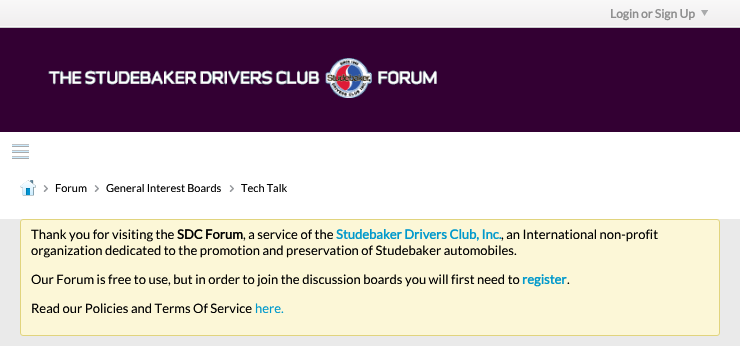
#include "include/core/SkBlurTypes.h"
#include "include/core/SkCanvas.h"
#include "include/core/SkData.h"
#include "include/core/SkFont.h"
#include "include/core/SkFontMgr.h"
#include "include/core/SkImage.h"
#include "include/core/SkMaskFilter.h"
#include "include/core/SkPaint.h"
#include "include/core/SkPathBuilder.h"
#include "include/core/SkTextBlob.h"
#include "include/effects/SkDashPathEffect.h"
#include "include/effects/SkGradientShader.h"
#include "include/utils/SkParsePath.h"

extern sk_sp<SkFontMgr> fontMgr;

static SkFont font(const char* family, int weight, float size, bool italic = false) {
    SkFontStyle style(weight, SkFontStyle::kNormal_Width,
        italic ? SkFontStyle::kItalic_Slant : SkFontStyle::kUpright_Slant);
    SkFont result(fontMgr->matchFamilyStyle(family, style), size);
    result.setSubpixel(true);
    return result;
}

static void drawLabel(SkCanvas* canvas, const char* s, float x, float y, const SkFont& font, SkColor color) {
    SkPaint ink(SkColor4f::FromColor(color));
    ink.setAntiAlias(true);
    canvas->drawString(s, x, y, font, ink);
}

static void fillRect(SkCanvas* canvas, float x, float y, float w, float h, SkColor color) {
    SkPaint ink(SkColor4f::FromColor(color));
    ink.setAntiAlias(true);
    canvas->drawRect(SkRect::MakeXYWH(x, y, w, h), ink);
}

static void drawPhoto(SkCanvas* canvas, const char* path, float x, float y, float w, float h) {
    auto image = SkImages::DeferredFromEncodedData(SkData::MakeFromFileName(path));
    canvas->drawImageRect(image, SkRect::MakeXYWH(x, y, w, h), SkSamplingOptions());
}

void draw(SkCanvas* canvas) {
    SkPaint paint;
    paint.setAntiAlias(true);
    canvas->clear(0xFFFFFFFF);
    {
        const SkColor colors[] = {0xFFF8F8F8, 0xFFEFEDEE};
        const float stops[] = {0, 1};
        const SkPoint ends[] = {{370, 0}, {370, 28}};
        paint.setShader(SkGradientShader::MakeLinear(ends, colors, stops, 2, SkTileMode::kClamp));
        paint.setAlpha(255);
    }
    canvas->drawRect(SkRect::MakeXYWH(0, 0, 740, 26), paint);
    SkFont font1 = font("Lato", 700, 12);
    drawLabel(canvas, "Login or Sign Up", 610, 18, font1, 0xFF8E8E8E);
    drawPhoto(canvas, "assets/img1.png", 701, 10, 7, 6);
    fillRect(canvas, 0, 26, 740, 1, 0xFFFAFAFA);
    fillRect(canvas, 0, 27, 740, 1, 0xFFC7C8C9);
    fillRect(canvas, 0, 28, 740, 104, 0xFF330033);
    drawPhoto(canvas, "assets/img2.png", 48, 58, 389, 40);
    drawPhoto(canvas, "assets/img3.png", 12, 144, 17, 15);
    drawPhoto(canvas, "assets/img4.png", 20, 180, 16, 16);
    drawPhoto(canvas, "assets/img5.png", 43, 185, 5, 7);
    SkFont font2 = font("Lato", 400, 11);
    drawLabel(canvas, "Forum", 55, 192, font2, 0xFF000000);
    drawPhoto(canvas, "assets/img5.png", 94, 185, 5, 7);
    drawLabel(canvas, "General Interest Boards", 106, 192, font2, 0xFF000000);
    drawPhoto(canvas, "assets/img5.png", 229, 185, 5, 7);
    drawLabel(canvas, "Tech Talk", 241, 192, font2, 0xFF000000);
    fillRect(canvas, 0, 219, 740, 127, 0xFFEAEAEA);
    paint.setShader(nullptr);
    paint.setColor(0xFFFCF7D7);
    canvas->drawRoundRect(SkRect::MakeXYWH(20.5f, 219.5f, 699, 116), 2.5f, 2.5f, paint);
    paint.setStroke(true);
    paint.setStrokeWidth(1);
    paint.setColor(0xFFE1D47E);
    canvas->drawRoundRect(SkRect::MakeXYWH(20.5f, 219.5f, 699, 116), 2.5f, 2.5f, paint);
    SkFont font3 = font("Lato", 400, 13);
    drawLabel(canvas, "Thank you for visiting the", 31, 239, font3, 0xFF000000);
    SkFont font4 = font("Lato", 700, 13);
    drawLabel(canvas, "SDC Forum", 177, 239, font4, 0xFF000000);
    drawLabel(canvas, ", a service of the", 243, 239, font3, 0xFF000000);
    drawLabel(canvas, "Studebaker Drivers Club, Inc.", 336, 239, font4, 0xFF0099CC);
    drawLabel(canvas, ", an International non-profit", 501, 239, font3, 0xFF000000);
    drawLabel(canvas, "organization dedicated to the promotion and preservation of Studebaker automobiles.", 31, 255, font3, 0xFF000000);
    drawLabel(canvas, "Our Forum is free to use, but in order to join the discussion boards you will first need to", 31, 284, font3, 0xFF000000);
    drawLabel(canvas, "register", 522, 284, font4, 0xFF0099CC);
    drawLabel(canvas, ".", 567, 284, font3, 0xFF000000);
    drawLabel(canvas, "Read our Policies and Terms Of Service", 31, 313, font3, 0xFF000000);
    drawLabel(canvas, "here.", 255, 313, font3, 0xFF0099CC);
}
